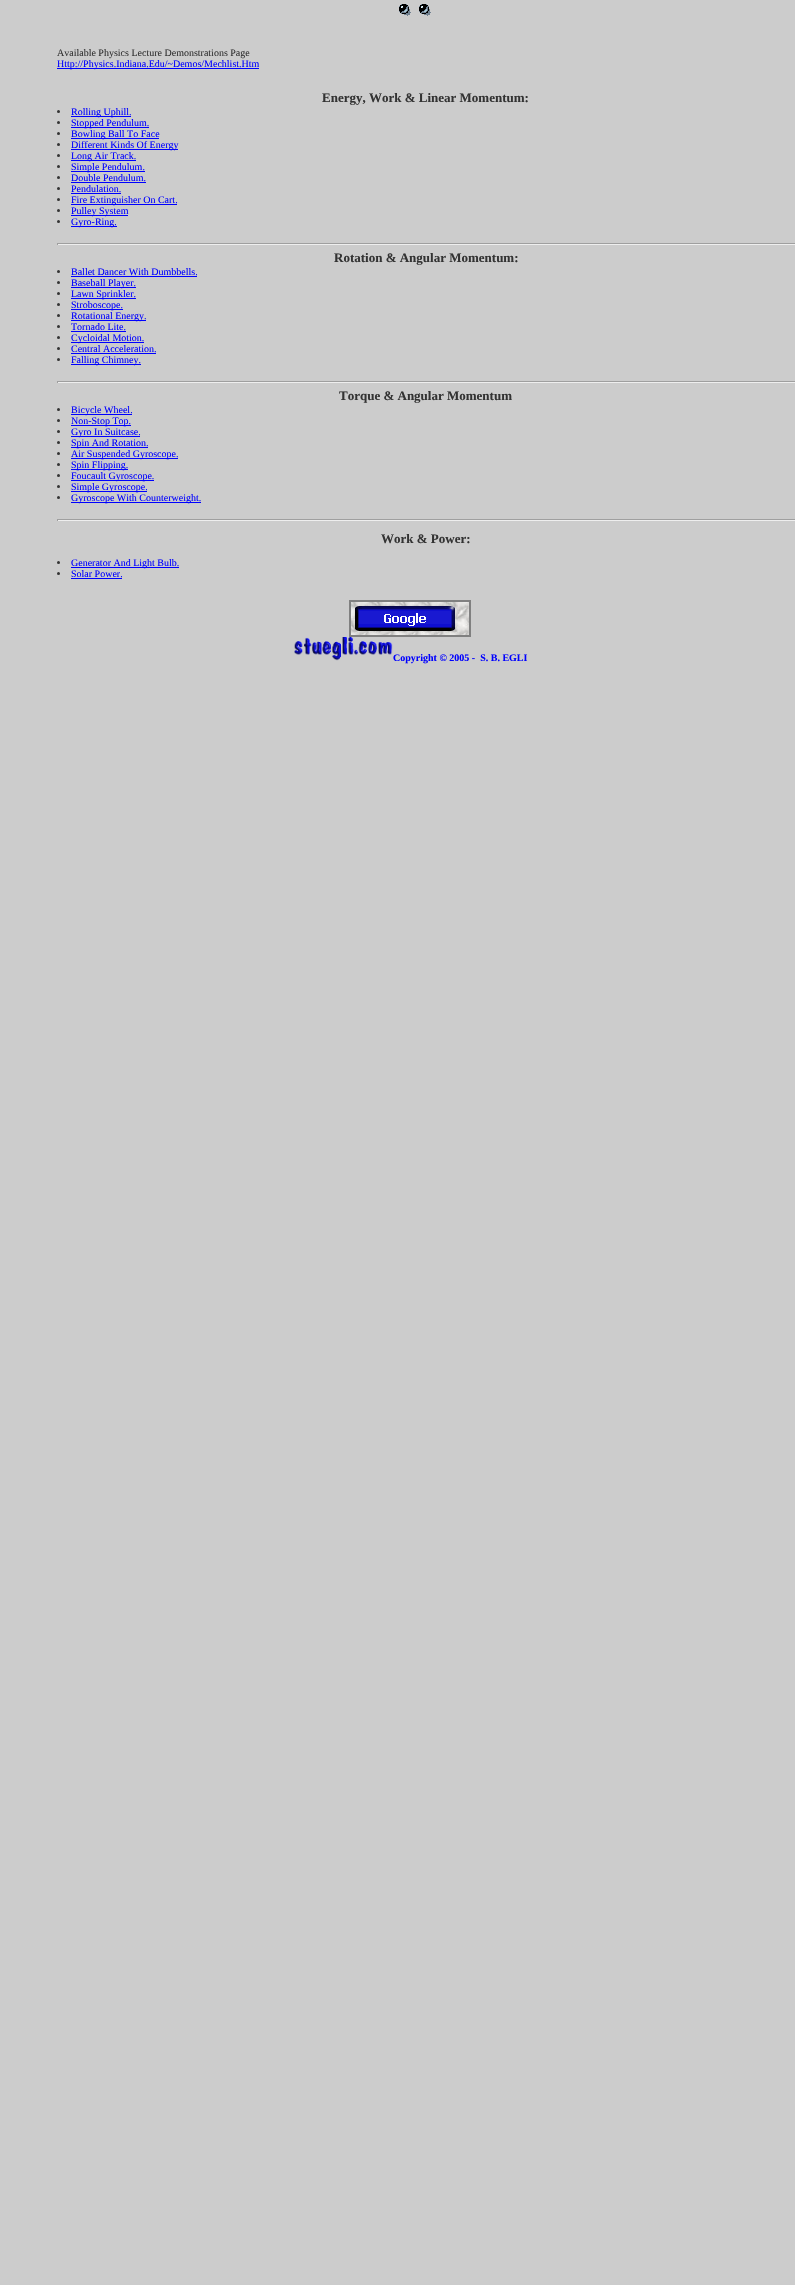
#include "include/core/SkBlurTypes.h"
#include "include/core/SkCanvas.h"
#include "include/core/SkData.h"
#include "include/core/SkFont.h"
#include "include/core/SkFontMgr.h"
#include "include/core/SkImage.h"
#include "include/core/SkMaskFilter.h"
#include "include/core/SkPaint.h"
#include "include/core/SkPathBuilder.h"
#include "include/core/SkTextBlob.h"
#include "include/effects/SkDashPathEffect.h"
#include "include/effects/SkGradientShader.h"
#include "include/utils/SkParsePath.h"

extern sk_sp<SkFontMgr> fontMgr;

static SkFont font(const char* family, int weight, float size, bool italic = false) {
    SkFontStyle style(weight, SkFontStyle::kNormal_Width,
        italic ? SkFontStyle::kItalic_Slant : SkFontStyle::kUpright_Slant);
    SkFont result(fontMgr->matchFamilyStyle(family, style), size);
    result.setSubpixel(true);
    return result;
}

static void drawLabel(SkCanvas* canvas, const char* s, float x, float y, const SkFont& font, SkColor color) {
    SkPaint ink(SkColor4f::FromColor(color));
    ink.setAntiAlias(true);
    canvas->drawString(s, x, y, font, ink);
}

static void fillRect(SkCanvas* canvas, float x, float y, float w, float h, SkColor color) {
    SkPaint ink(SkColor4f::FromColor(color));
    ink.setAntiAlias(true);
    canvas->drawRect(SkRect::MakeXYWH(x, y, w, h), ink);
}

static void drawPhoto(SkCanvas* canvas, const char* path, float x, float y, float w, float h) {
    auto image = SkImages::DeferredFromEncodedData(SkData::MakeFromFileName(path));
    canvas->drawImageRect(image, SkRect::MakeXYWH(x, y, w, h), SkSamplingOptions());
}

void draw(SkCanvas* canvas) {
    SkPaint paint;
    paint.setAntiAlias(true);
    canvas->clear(0xFFCCCCCC);
    drawPhoto(canvas, "assets/img1.png", 399, 4, 12, 12);
    drawPhoto(canvas, "assets/img1.png", 419, 4, 12, 12);
    SkFont font1 = font("Liberation Serif", 400, 10);
    drawLabel(canvas, "Available Physics Lecture Demonstrations Page", 57, 56, font1, 0xFF333333);
    fillRect(canvas, 57, 68, 202, 1, 0xFF0000FF);
    drawLabel(canvas, "Http://Physics.Indiana.Edu/~Demos/Mechlist.Htm", 57, 67, font1, 0xFF0000FF);
    SkFont font2 = font("Liberation Serif", 700, 13);
    drawLabel(canvas, "Energy, Work & Linear Momentum:", 322, 102, font2, 0xFF333333);
    paint.setColor(0xFF333333);
    canvas->drawCircle(58.5f, 111.5f, 1.5f, paint);
    fillRect(canvas, 71, 116, 60, 1, 0xFF0000FF);
    drawLabel(canvas, "Rolling Uphill.", 71, 115, font1, 0xFF0000FF);
    canvas->drawCircle(58.5f, 122.5f, 1.5f, paint);
    fillRect(canvas, 71, 127, 78, 1, 0xFF0000FF);
    drawLabel(canvas, "Stopped Pendulum.", 71, 126, font1, 0xFF0000FF);
    canvas->drawCircle(58.5f, 133.5f, 1.5f, paint);
    fillRect(canvas, 71, 138, 88, 1, 0xFF0000FF);
    drawLabel(canvas, "Bowling Ball To Face", 71, 137, font1, 0xFF0000FF);
    canvas->drawCircle(58.5f, 144.5f, 1.5f, paint);
    fillRect(canvas, 71, 149, 107, 1, 0xFF0000FF);
    drawLabel(canvas, "Different Kinds Of Energy", 71, 148, font1, 0xFF0000FF);
    canvas->drawCircle(58.5f, 155.5f, 1.5f, paint);
    fillRect(canvas, 71, 160, 65, 1, 0xFF0000FF);
    drawLabel(canvas, "Long Air Track.", 71, 159, font1, 0xFF0000FF);
    canvas->drawCircle(58.5f, 166.5f, 1.5f, paint);
    fillRect(canvas, 71, 171, 74, 1, 0xFF0000FF);
    drawLabel(canvas, "Simple Pendulum.", 71, 170, font1, 0xFF0000FF);
    canvas->drawCircle(58.5f, 177.5f, 1.5f, paint);
    drawLabel(canvas, "Double Pendulum.", 71, 181, font1, 0xFF0000FF);
    fillRect(canvas, 71, 182, 75, 1, 0xFF0000FF);
    canvas->drawCircle(58.5f, 188.5f, 1.5f, paint);
    drawLabel(canvas, "Pendulation.", 71, 192, font1, 0xFF0000FF);
    fillRect(canvas, 71, 193, 50, 1, 0xFF0000FF);
    canvas->drawCircle(58.5f, 199.5f, 1.5f, paint);
    fillRect(canvas, 71, 204, 106, 1, 0xFF0000FF);
    drawLabel(canvas, "Fire Extinguisher On Cart.", 71, 203, font1, 0xFF0000FF);
    canvas->drawCircle(58.5f, 210.5f, 1.5f, paint);
    fillRect(canvas, 71, 215, 57, 1, 0xFF0000FF);
    drawLabel(canvas, "Pulley System", 71, 214, font1, 0xFF0000FF);
    canvas->drawCircle(58.5f, 221.5f, 1.5f, paint);
    fillRect(canvas, 71, 226, 46, 1, 0xFF0000FF);
    drawLabel(canvas, "Gyro-Ring.", 71, 225, font1, 0xFF0000FF);
    fillRect(canvas, 57, 243, 738, 1, 0xFF9F9F9F);
    fillRect(canvas, 57, 244, 738, 1, 0xFFEEEEEE);
    fillRect(canvas, 57, 243, 1, 2, 0xFF9F9F9F);
    drawLabel(canvas, "Rotation & Angular Momentum:", 334, 262, font2, 0xFF333333);
    canvas->drawCircle(58.5f, 271.5f, 1.5f, paint);
    drawLabel(canvas, "Ballet Dancer With Dumbbells.", 71, 275, font1, 0xFF0000FF);
    fillRect(canvas, 71, 276, 126, 1, 0xFF0000FF);
    canvas->drawCircle(58.5f, 282.5f, 1.5f, paint);
    fillRect(canvas, 71, 287, 65, 1, 0xFF0000FF);
    drawLabel(canvas, "Baseball Player.", 71, 286, font1, 0xFF0000FF);
    canvas->drawCircle(58.5f, 293.5f, 1.5f, paint);
    fillRect(canvas, 71, 298, 65, 1, 0xFF0000FF);
    drawLabel(canvas, "Lawn Sprinkler.", 71, 297, font1, 0xFF0000FF);
    canvas->drawCircle(58.5f, 304.5f, 1.5f, paint);
    fillRect(canvas, 71, 309, 52, 1, 0xFF0000FF);
    drawLabel(canvas, "Stroboscope.", 71, 308, font1, 0xFF0000FF);
    canvas->drawCircle(58.5f, 315.5f, 1.5f, paint);
    fillRect(canvas, 71, 320, 75, 1, 0xFF0000FF);
    drawLabel(canvas, "Rotational Energy.", 71, 319, font1, 0xFF0000FF);
    canvas->drawCircle(58.5f, 326.5f, 1.5f, paint);
    drawLabel(canvas, "Tornado Lite.", 71, 330, font1, 0xFF0000FF);
    fillRect(canvas, 71, 331, 55, 1, 0xFF0000FF);
    canvas->drawCircle(58.5f, 337.5f, 1.5f, paint);
    fillRect(canvas, 71, 342, 73, 1, 0xFF0000FF);
    drawLabel(canvas, "Cycloidal Motion.", 71, 341, font1, 0xFF0000FF);
    canvas->drawCircle(58.5f, 348.5f, 1.5f, paint);
    drawLabel(canvas, "Central Acceleration.", 71, 352, font1, 0xFF0000FF);
    fillRect(canvas, 71, 353, 85, 1, 0xFF0000FF);
    canvas->drawCircle(58.5f, 359.5f, 1.5f, paint);
    fillRect(canvas, 71, 364, 70, 1, 0xFF0000FF);
    drawLabel(canvas, "Falling Chimney.", 71, 363, font1, 0xFF0000FF);
    fillRect(canvas, 57, 381, 738, 1, 0xFF9F9F9F);
    fillRect(canvas, 57, 382, 738, 1, 0xFFEEEEEE);
    fillRect(canvas, 57, 381, 1, 2, 0xFF9F9F9F);
    drawLabel(canvas, "Torque & Angular Momentum", 339, 400, font2, 0xFF333333);
    canvas->drawCircle(58.5f, 409.5f, 1.5f, paint);
    fillRect(canvas, 71, 414, 61, 1, 0xFF0000FF);
    drawLabel(canvas, "Bicycle Wheel.", 71, 413, font1, 0xFF0000FF);
    canvas->drawCircle(58.5f, 420.5f, 1.5f, paint);
    fillRect(canvas, 71, 425, 60, 1, 0xFF0000FF);
    drawLabel(canvas, "Non-Stop Top.", 71, 424, font1, 0xFF0000FF);
    canvas->drawCircle(58.5f, 431.5f, 1.5f, paint);
    fillRect(canvas, 71, 436, 69, 1, 0xFF0000FF);
    drawLabel(canvas, "Gyro In Suitcase.", 71, 435, font1, 0xFF0000FF);
    canvas->drawCircle(58.5f, 442.5f, 1.5f, paint);
    fillRect(canvas, 71, 447, 77, 1, 0xFF0000FF);
    drawLabel(canvas, "Spin And Rotation.", 71, 446, font1, 0xFF0000FF);
    canvas->drawCircle(58.5f, 453.5f, 1.5f, paint);
    fillRect(canvas, 71, 458, 107, 1, 0xFF0000FF);
    drawLabel(canvas, "Air Suspended Gyroscope.", 71, 457, font1, 0xFF0000FF);
    canvas->drawCircle(58.5f, 464.5f, 1.5f, paint);
    fillRect(canvas, 71, 469, 57, 1, 0xFF0000FF);
    drawLabel(canvas, "Spin Flipping.", 71, 468, font1, 0xFF0000FF);
    canvas->drawCircle(58.5f, 475.5f, 1.5f, paint);
    fillRect(canvas, 71, 480, 83, 1, 0xFF0000FF);
    drawLabel(canvas, "Foucault Gyroscope.", 71, 479, font1, 0xFF0000FF);
    canvas->drawCircle(58.5f, 486.5f, 1.5f, paint);
    fillRect(canvas, 71, 491, 76, 1, 0xFF0000FF);
    drawLabel(canvas, "Simple Gyroscope.", 71, 490, font1, 0xFF0000FF);
    canvas->drawCircle(58.5f, 497.5f, 1.5f, paint);
    fillRect(canvas, 71, 502, 130, 1, 0xFF0000FF);
    drawLabel(canvas, "Gyroscope With Counterweight.", 71, 501, font1, 0xFF0000FF);
    fillRect(canvas, 57, 519, 738, 1, 0xFF9F9F9F);
    fillRect(canvas, 57, 520, 738, 1, 0xFFEEEEEE);
    fillRect(canvas, 57, 519, 1, 2, 0xFF9F9F9F);
    drawLabel(canvas, "Work & Power:", 381, 543, font2, 0xFF333333);
    canvas->drawCircle(58.5f, 562.5f, 1.5f, paint);
    fillRect(canvas, 71, 567, 108, 1, 0xFF0000FF);
    drawLabel(canvas, "Generator And Light Bulb.", 71, 566, font1, 0xFF0000FF);
    canvas->drawCircle(58.5f, 573.5f, 1.5f, paint);
    drawLabel(canvas, "Solar Power.", 71, 577, font1, 0xFF0000FF);
    fillRect(canvas, 71, 578, 51, 1, 0xFF0000FF);
    drawPhoto(canvas, "assets/img2.png", 351, 602, 118, 33);
    fillRect(canvas, 349, 600, 122, 2, 0xFF808080);
    fillRect(canvas, 469, 600, 2, 37, 0xFF808080);
    fillRect(canvas, 349, 635, 122, 2, 0xFF808080);
    fillRect(canvas, 349, 600, 2, 37, 0xFF808080);
    drawPhoto(canvas, "assets/img3.png", 355, 606, 100, 25);
    drawPhoto(canvas, "assets/img4.png", 294, 637, 99, 24);
    SkFont font3 = font("Liberation Serif", 700, 10);
    drawLabel(canvas, "Copyright © 2005 -  S. B. EGLI", 393, 661, font3, 0xFF0000FF);
}
